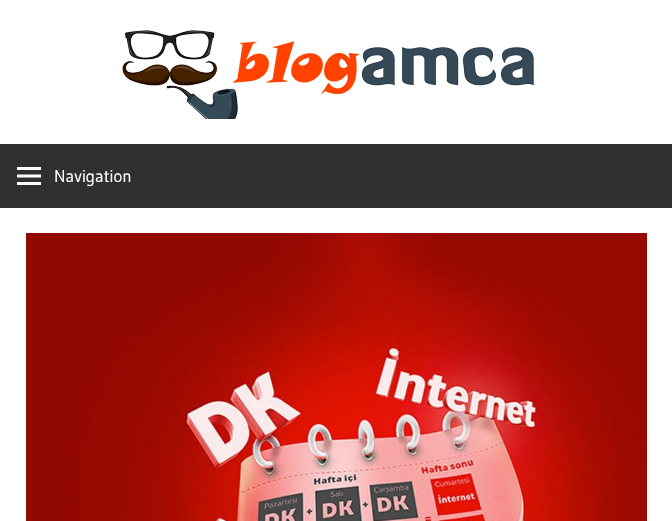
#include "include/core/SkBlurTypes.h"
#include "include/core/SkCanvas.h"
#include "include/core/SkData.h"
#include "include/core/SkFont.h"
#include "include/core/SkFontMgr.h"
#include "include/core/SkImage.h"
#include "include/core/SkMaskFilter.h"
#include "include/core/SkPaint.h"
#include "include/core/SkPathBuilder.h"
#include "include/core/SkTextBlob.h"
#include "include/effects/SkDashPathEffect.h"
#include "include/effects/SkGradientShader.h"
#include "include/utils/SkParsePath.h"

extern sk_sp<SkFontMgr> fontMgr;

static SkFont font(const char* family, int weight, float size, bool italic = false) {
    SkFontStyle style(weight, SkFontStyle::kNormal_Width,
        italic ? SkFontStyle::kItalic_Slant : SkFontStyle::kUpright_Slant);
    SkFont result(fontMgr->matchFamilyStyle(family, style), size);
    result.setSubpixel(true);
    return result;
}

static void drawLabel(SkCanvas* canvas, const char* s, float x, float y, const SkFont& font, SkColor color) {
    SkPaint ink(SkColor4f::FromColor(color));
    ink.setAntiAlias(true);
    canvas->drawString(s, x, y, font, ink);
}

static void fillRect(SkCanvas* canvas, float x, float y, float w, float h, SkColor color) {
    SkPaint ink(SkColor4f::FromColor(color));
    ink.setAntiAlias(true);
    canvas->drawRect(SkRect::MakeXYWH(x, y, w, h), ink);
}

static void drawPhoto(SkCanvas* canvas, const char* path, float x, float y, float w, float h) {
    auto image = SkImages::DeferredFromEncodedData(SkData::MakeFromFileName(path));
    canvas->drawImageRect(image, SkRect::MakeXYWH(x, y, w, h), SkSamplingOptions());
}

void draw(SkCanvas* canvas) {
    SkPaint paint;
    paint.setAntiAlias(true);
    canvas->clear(0xFFFFFFFF);
    drawPhoto(canvas, "assets/img1.png", 122, 30, 412, 89);
    fillRect(canvas, 0, 144, 672, 64, 0xFF303030);
    drawPhoto(canvas, "assets/img2.png", 17, 167, 24, 18);
    SkFont font1 = font("Gudea", 400, 17);
    drawLabel(canvas, "Navigation", 54, 182, font1, 0xFFFFFFFF);
    drawPhoto(canvas, "assets/img3.png", 26, 233, 621, 288);
}
